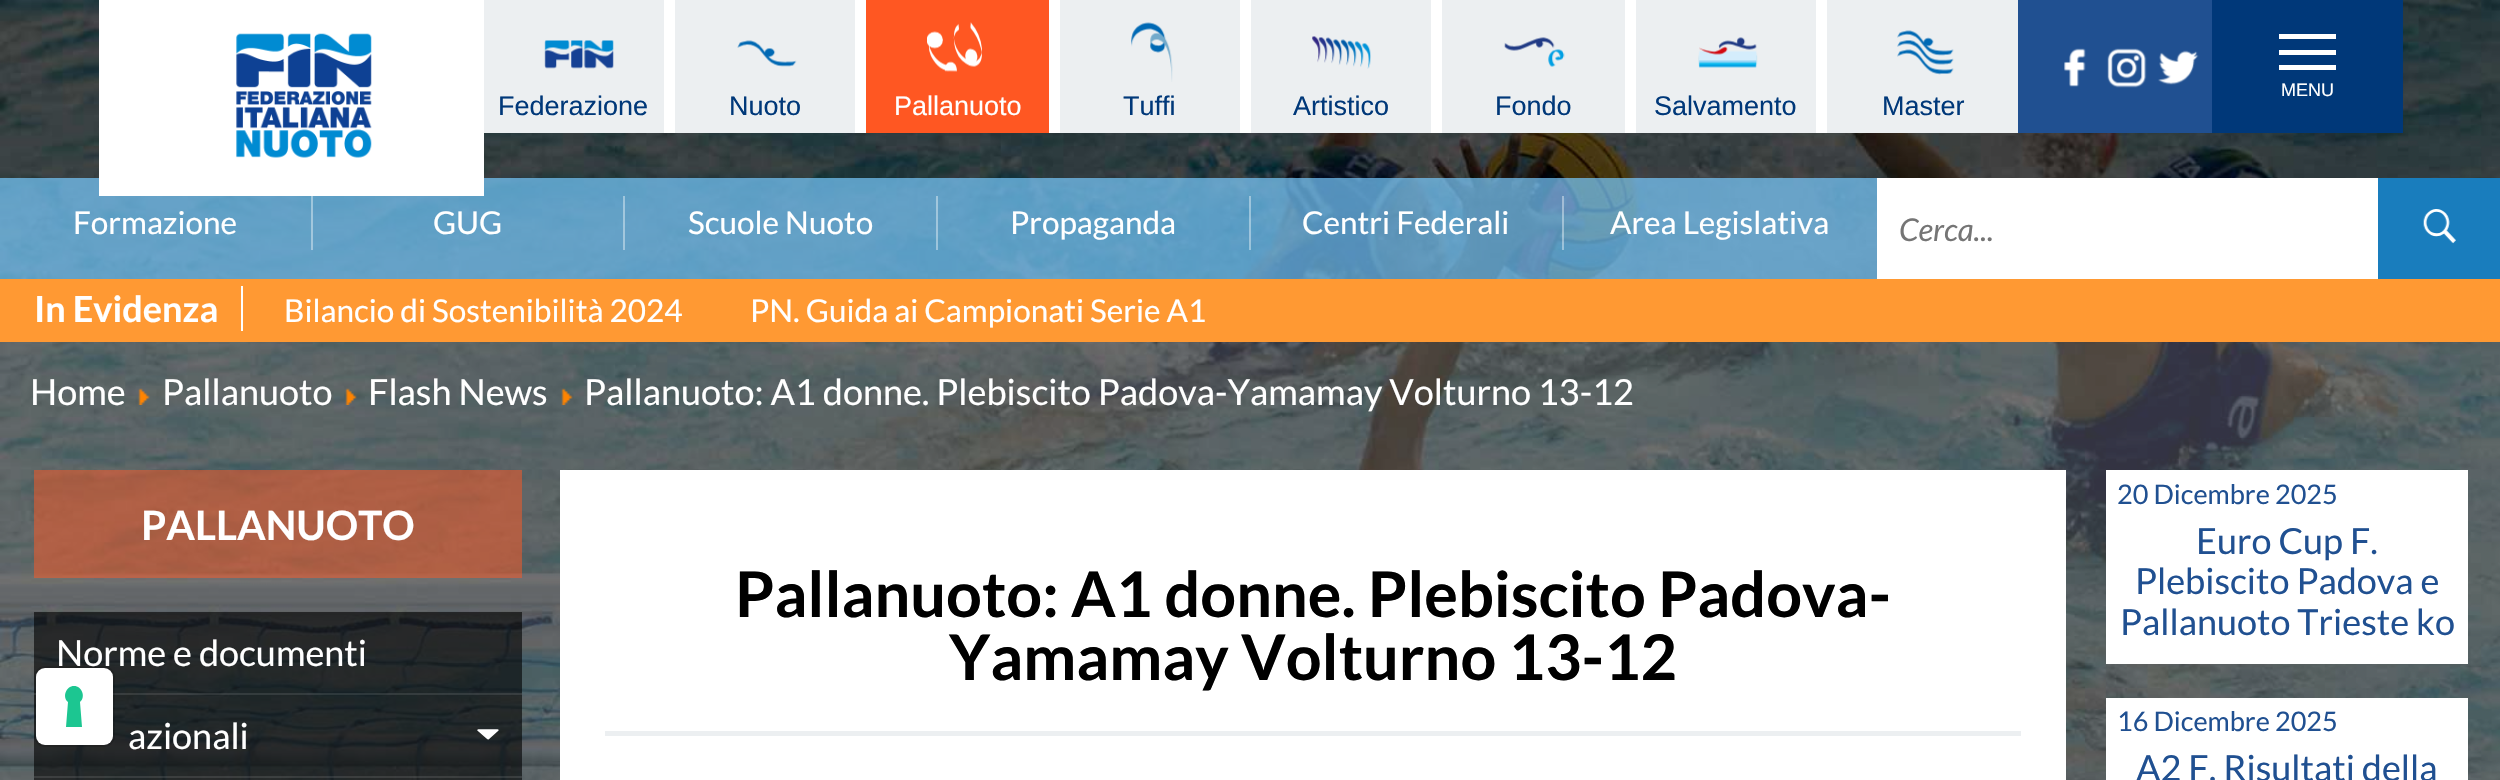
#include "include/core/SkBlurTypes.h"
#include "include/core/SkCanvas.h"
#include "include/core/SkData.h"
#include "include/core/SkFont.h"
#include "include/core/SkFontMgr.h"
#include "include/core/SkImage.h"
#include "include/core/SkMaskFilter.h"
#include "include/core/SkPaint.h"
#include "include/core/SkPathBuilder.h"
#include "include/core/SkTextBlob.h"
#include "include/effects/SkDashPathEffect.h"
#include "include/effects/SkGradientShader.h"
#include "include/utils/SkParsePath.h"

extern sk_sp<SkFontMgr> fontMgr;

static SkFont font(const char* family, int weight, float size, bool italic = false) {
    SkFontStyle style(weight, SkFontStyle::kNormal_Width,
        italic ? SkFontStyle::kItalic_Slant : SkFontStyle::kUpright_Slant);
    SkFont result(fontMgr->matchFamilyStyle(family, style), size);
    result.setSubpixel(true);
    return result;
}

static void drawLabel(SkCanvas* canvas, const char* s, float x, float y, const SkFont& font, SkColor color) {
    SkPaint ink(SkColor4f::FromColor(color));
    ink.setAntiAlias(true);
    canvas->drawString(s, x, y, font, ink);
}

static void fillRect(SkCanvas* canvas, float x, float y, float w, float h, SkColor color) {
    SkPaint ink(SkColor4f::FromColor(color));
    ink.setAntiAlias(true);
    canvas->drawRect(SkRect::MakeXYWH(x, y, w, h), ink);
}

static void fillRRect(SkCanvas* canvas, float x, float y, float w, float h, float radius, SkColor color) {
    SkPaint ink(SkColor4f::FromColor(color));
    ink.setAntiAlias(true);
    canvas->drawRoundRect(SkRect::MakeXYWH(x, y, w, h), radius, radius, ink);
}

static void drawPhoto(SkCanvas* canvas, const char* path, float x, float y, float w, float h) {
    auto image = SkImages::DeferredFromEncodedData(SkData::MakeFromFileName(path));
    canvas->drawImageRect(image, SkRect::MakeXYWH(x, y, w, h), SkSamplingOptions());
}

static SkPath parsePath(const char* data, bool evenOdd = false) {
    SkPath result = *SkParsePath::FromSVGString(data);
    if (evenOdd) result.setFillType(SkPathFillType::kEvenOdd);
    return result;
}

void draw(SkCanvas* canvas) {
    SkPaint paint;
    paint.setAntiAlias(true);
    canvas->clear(0xFFFFFFFF);
    drawPhoto(canvas, "assets/img13.png", 0, 0, 2500, 780);
    fillRect(canvas, 0, 178, 1877, 101, 0xB377CBFF);
    fillRect(canvas, 99, 0, 385, 196, 0xFFFFFFFF);
    drawPhoto(canvas, "assets/img1.png", 236, 33, 136, 125);
    fillRect(canvas, 2018, 0, 194, 133, 0xFF205091);
    drawPhoto(canvas, "assets/img2.png", 2064, 48, 22, 39);
    drawPhoto(canvas, "assets/img3.png", 2107, 48, 40, 40);
    drawPhoto(canvas, "assets/img4.png", 2158, 50, 41, 35);
    fillRect(canvas, 2212, 0, 191, 133, 0xFF003879);
    fillRect(canvas, 2279, 34, 57, 5, 0xFFFFFFFF);
    fillRect(canvas, 2279, 50, 57, 5, 0xFFFFFFFF);
    fillRect(canvas, 2279, 65, 57, 5, 0xFFFFFFFF);
    SkFont font1 = font("Liberation Sans", 400, 18);
    drawLabel(canvas, "MENU", 2281, 96, font1, 0xFFFFFFFF);
    fillRect(canvas, 484, 0, 180, 133, 0xFFECEFF1);
    fillRect(canvas, 664, 0, 11, 133, 0xFFFFFFFF);
    drawPhoto(canvas, "assets/img5.png", 544, 40, 70, 29);
    SkFont font2 = font("Liberation Sans", 400, 27);
    drawLabel(canvas, "Federazione", 498, 115, font2, 0xFF003879);
    fillRect(canvas, 675, 0, 180, 133, 0xFFECEFF1);
    fillRect(canvas, 855, 0, 11, 133, 0xFFFFFFFF);
    drawPhoto(canvas, "assets/img6.png", 737, 40, 60, 27);
    drawLabel(canvas, "Nuoto", 729, 115, font2, 0xFF003879);
    fillRect(canvas, 866, 0, 183, 133, 0xFFFF5722);
    fillRect(canvas, 1049, 0, 11, 133, 0xFFFFFFFF);
    drawPhoto(canvas, "assets/img7.png", 927, 22, 55, 50);
    drawLabel(canvas, "Pallanuoto", 894, 115, font2, 0xFFFFFFFF);
    fillRect(canvas, 1060, 0, 180, 133, 0xFFECEFF1);
    fillRect(canvas, 1240, 0, 11, 133, 0xFFFFFFFF);
    drawPhoto(canvas, "assets/img8.png", 1131, 22, 42, 60);
    drawLabel(canvas, "Tuffi", 1123, 115, font2, 0xFF003879);
    fillRect(canvas, 1251, 0, 180, 133, 0xFFECEFF1);
    fillRect(canvas, 1431, 0, 11, 133, 0xFFFFFFFF);
    drawPhoto(canvas, "assets/img9.png", 1312, 36, 59, 33);
    drawLabel(canvas, "Artistico", 1293, 115, font2, 0xFF003879);
    fillRect(canvas, 1442, 0, 183, 133, 0xFFECEFF1);
    fillRect(canvas, 1625, 0, 11, 133, 0xFFFFFFFF);
    drawPhoto(canvas, "assets/img10.png", 1504, 37, 61, 30);
    drawLabel(canvas, "Fondo", 1495, 115, font2, 0xFF003879);
    fillRect(canvas, 1636, 0, 180, 133, 0xFFECEFF1);
    fillRect(canvas, 1816, 0, 11, 133, 0xFFFFFFFF);
    drawPhoto(canvas, "assets/img11.png", 1698, 37, 60, 31);
    drawLabel(canvas, "Salvamento", 1654, 115, font2, 0xFF003879);
    fillRect(canvas, 1827, 0, 191, 133, 0xFFECEFF1);
    drawPhoto(canvas, "assets/img12.png", 1897, 30, 57, 45);
    drawLabel(canvas, "Master", 1882, 115, font2, 0xFF003879);
    fillRect(canvas, 311, 196, 2, 54, 0x66FFFFFF);
    SkFont font3 = font("Lato", 400, 31.5f);
    drawLabel(canvas, "Formazione", 73, 234, font3, 0xFFFFFFFF);
    fillRect(canvas, 623, 196, 2, 54, 0x66FFFFFF);
    drawLabel(canvas, "GUG", 433, 234, font3, 0xFFFFFFFF);
    fillRect(canvas, 936, 196, 2, 54, 0x66FFFFFF);
    drawLabel(canvas, "Scuole Nuoto", 688, 234, font3, 0xFFFFFFFF);
    fillRect(canvas, 1249, 196, 2, 54, 0x66FFFFFF);
    drawLabel(canvas, "Propaganda", 1010, 234, font3, 0xFFFFFFFF);
    fillRect(canvas, 1562, 196, 2, 54, 0x66FFFFFF);
    drawLabel(canvas, "Centri Federali", 1302, 234, font3, 0xFFFFFFFF);
    drawLabel(canvas, "Area Legislativa", 1610, 234, font3, 0xFFFFFFFF);
    fillRect(canvas, 1877, 178, 501, 101, 0xFFFFFFFF);
    SkFont font4 = font("Lato", 400, 31.5f, true);
    drawLabel(canvas, "Cerca...", 1899, 241, font4, 0xFF757575);
    fillRect(canvas, 2378, 178, 122, 101, 0xFF197DBD);
    drawPhoto(canvas, "assets/img14.png", 2423, 209, 33, 35);
    fillRect(canvas, 0, 279, 2500, 63, 0xFFFF9933);
    fillRect(canvas, 241, 286, 2, 45, 0xFFFFFFFF);
    SkFont font5 = font("Lato", 700, 36);
    drawLabel(canvas, "In Evidenza", 34, 322, font5, 0xFFFFFFFF);
    drawLabel(canvas, "Bilancio di Sostenibilità 2024", 284, 322, font3, 0xFFFFFFFF);
    drawLabel(canvas, "PN. Guida ai Campionati Serie A1", 750, 322, font3, 0xFFFFFFFF);
    fillRect(canvas, 0, 342, 2500, 95, 0x33FFFFFF);
    SkFont font6 = font("Lato", 400, 36);
    drawLabel(canvas, "Home", 30, 405, font6, 0xFFFFFFFF);
    drawPhoto(canvas, "assets/img15.png", 138, 388, 12, 17);
    drawLabel(canvas, "Pallanuoto", 162, 405, font6, 0xFFFFFFFF);
    drawPhoto(canvas, "assets/img16.png", 345, 388, 12, 17);
    drawLabel(canvas, "Flash News", 368, 405, font6, 0xFFFFFFFF);
    drawPhoto(canvas, "assets/img17.png", 561, 388, 12, 17);
    drawLabel(canvas, "Pallanuoto: A1 donne. Plebiscito Padova-Yamamay Volturno 13-12", 584, 405, font6, 0xFFFFFFFF);
    fillRect(canvas, 0, 437, 2500, 343, 0x33FFFFFF);
    fillRect(canvas, 34, 470, 488, 108, 0x80FF5722);
    SkFont font7 = font("Lato", 700, 40.5f);
    drawLabel(canvas, "PALLANUOTO", 141, 540, font7, 0xFFFFFFFF);
    fillRect(canvas, 34, 612, 488, 83, 0x99000000);
    fillRect(canvas, 34, 693, 488, 2, 0x1AFFFFFF);
    drawLabel(canvas, "Norme e documenti", 56, 666, font6, 0xFFFFFFFF);
    fillRect(canvas, 34, 695, 488, 84, 0x99000000);
    fillRect(canvas, 34, 776, 488, 2, 0x1AFFFFFF);
    drawLabel(canvas, "azionali", 128, 749, font6, 0xFFFFFFFF);
    drawPhoto(canvas, "assets/img18.png", 477, 729, 22, 11);
    fillRect(canvas, 34, 779, 488, 1, 0x99000000);
    fillRect(canvas, 560, 470, 1506, 310, 0xFFFFFFFF);
    SkFont font8 = font("Lato", 700, 63);
    drawLabel(canvas, "Pallanuoto: A1 donne. Plebiscito Padova-", 735, 617, font8, 0xFF000000);
    drawLabel(canvas, "Yamamay Volturno 13-12", 949, 680, font8, 0xFF000000);
    fillRect(canvas, 605, 731, 1416, 5, 0xFFECEFF1);
    fillRect(canvas, 2106, 470, 362, 194, 0xFFFFFFFF);
    SkFont font9 = font("Lato", 400, 27);
    drawLabel(canvas, "20 Dicembre 2025", 2117, 504, font9, 0xFF205091);
    drawLabel(canvas, "Euro Cup F.", 2196, 554, font6, 0xFF205091);
    drawLabel(canvas, "Plebiscito Padova e", 2135, 594, font6, 0xFF205091);
    drawLabel(canvas, "Pallanuoto Trieste ko", 2120, 635, font6, 0xFF205091);
    fillRect(canvas, 2106, 698, 362, 82, 0xFFFFFFFF);
    drawLabel(canvas, "16 Dicembre 2025", 2117, 731, font9, 0xFF205091);
    drawLabel(canvas, "A2 F. Risultati della", 2136, 781, font6, 0xFF205091);
    paint.setStroke(true);
    paint.setStrokeWidth(2);
    paint.setColor(0x26000000);
    canvas->drawRoundRect(SkRect::MakeXYWH(35, 667, 79, 79), 10, 10, paint);
    fillRRect(canvas, 36, 668, 77, 77, 9, 0xFFFFFFFF);
    paint.setStroke(false);
    paint.setColor(0xFF1CC691);
    canvas->drawPath(parsePath("M74 686C82 686 86 697 80 702L82 727H66L68 702C62 697 66 686 74 686Z", true), paint);
}
